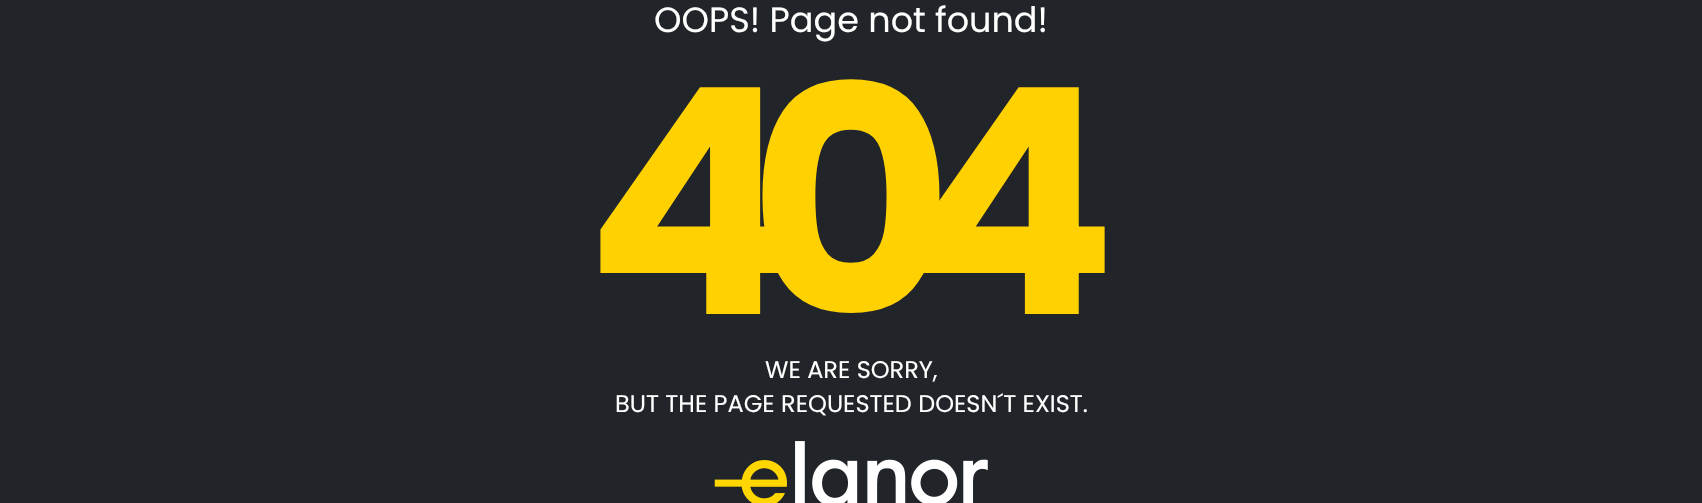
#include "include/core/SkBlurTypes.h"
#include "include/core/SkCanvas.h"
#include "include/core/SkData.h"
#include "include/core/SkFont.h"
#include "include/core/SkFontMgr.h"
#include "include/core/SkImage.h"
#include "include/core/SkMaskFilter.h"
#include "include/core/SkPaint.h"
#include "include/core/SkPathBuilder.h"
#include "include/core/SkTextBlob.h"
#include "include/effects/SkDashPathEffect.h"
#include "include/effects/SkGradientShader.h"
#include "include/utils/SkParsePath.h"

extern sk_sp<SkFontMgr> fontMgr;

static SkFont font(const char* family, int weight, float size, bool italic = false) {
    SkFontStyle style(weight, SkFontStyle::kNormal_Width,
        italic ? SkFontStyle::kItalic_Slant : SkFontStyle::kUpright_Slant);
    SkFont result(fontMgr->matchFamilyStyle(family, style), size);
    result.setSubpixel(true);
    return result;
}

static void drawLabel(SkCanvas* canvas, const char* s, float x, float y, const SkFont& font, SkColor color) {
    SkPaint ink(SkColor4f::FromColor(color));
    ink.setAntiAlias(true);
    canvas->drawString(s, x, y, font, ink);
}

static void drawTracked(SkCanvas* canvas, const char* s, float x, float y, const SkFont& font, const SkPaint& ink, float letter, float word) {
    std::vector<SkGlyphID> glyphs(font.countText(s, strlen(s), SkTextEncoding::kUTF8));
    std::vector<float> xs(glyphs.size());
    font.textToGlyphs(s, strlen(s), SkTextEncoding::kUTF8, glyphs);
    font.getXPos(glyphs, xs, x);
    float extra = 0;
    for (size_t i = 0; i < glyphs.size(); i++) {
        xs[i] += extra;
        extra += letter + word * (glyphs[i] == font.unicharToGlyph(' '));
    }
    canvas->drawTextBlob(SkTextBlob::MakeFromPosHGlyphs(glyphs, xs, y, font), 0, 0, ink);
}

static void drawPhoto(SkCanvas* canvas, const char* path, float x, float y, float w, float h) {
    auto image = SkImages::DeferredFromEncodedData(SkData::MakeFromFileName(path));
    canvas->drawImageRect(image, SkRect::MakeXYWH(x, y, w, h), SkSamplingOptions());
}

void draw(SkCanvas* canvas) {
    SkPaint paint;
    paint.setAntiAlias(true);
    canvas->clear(0xFF212529);
    SkFont font1 = font("Poppins", 400, 35);
    drawLabel(canvas, "OOPS! Page not found!", 654, 32, font1, 0xFFFFFFFF);
    SkFont font2 = font("Poppins", 700, 315);
    paint.setColor(0xFFFFD100);
    drawTracked(canvas, "404", 585, 314, font2, paint, -50, 0);
    SkFont font3 = font("Poppins", 400, 24);
    drawLabel(canvas, "WE ARE SORRY,", 765, 378, font3, 0xFFFFFFFF);
    drawLabel(canvas, "BUT THE PAGE REQUESTED DOESN´T EXIST.", 615, 412, font3, 0xFFFFFFFF);
    drawPhoto(canvas, "assets/img1.png", 714, 441, 274, 62);
}
